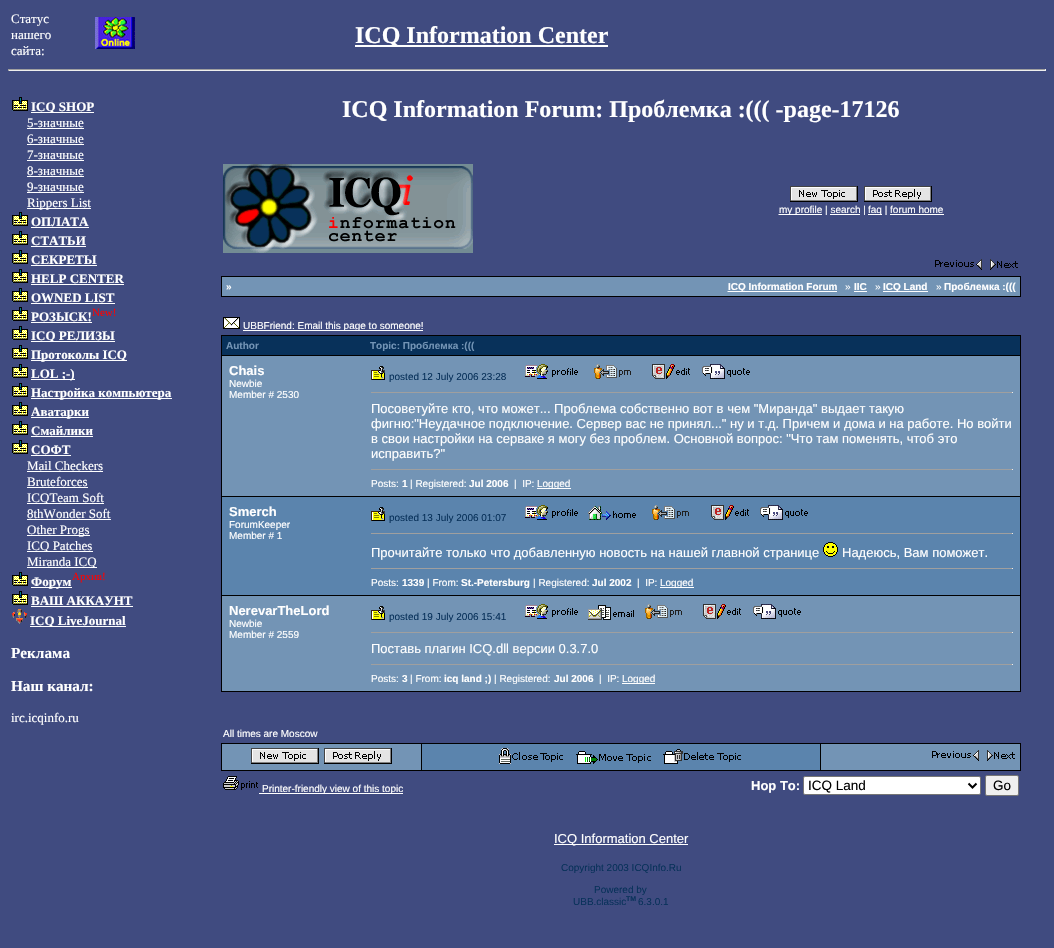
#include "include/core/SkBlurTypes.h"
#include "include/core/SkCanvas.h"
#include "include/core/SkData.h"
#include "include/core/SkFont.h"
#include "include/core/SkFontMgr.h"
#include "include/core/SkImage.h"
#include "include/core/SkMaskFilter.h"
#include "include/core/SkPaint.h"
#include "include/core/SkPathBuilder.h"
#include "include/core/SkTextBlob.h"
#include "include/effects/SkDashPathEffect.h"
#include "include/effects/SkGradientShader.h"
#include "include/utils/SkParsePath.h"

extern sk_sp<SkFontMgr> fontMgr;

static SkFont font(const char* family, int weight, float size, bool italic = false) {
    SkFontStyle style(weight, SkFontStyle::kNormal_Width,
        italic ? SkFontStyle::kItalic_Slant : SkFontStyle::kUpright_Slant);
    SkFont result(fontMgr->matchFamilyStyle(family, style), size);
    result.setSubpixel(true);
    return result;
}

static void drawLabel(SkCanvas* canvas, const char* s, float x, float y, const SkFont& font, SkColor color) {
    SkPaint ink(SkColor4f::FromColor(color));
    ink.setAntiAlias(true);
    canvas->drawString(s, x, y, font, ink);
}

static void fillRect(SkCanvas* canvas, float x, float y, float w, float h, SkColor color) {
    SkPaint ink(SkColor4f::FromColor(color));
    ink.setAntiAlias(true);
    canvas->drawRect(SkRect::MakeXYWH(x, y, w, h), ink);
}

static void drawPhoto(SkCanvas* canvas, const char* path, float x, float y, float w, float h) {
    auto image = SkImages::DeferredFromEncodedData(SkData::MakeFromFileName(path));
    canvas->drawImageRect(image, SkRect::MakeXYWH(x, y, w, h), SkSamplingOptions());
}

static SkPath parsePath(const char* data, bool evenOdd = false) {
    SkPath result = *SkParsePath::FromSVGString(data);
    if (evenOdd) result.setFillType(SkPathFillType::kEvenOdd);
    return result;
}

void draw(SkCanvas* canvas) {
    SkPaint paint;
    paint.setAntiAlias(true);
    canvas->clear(0xFF404B80);
    SkFont font1 = font("Liberation Serif", 400, 13);
    drawLabel(canvas, "Статус", 11, 23, font1, 0xFFFFFFFF);
    drawLabel(canvas, "нашего", 11, 39, font1, 0xFFFFFFFF);
    drawLabel(canvas, "сайта:", 11, 55, font1, 0xFFFFFFFF);
    drawPhoto(canvas, "assets/img1.png", 95, 17, 40, 32);
    fillRect(canvas, 355, 45, 253, 2, 0xFFFFFFFF);
    SkFont font2 = font("Liberation Serif", 700, 24);
    drawLabel(canvas, "ICQ Information Center", 355, 43, font2, 0xFFFFFFFF);
    fillRect(canvas, 8, 69, 1038, 1, 0xFF9F9F9F);
    fillRect(canvas, 1045, 69, 1, 2, 0xFFEEEEEE);
    fillRect(canvas, 8, 70, 1038, 1, 0xFFEEEEEE);
    fillRect(canvas, 8, 69, 1, 2, 0xFF9F9F9F);
    drawPhoto(canvas, "assets/img2.png", 12, 97, 16, 14);
    fillRect(canvas, 31, 112, 63, 1, 0xFFFFFFFF);
    SkFont font3 = font("Liberation Serif", 700, 13);
    drawLabel(canvas, "ICQ SHOP", 31, 111, font3, 0xFFFFFFFF);
    drawLabel(canvas, "5-значные", 27, 127, font1, 0xFFFFFFFF);
    fillRect(canvas, 27, 128, 57, 1, 0xFFFFFFFF);
    drawLabel(canvas, "6-значные", 27, 143, font1, 0xFFFFFFFF);
    fillRect(canvas, 27, 144, 57, 1, 0xFFFFFFFF);
    drawLabel(canvas, "7-значные", 27, 159, font1, 0xFFFFFFFF);
    fillRect(canvas, 27, 160, 57, 1, 0xFFFFFFFF);
    drawLabel(canvas, "8-значные", 27, 175, font1, 0xFFFFFFFF);
    fillRect(canvas, 27, 176, 57, 1, 0xFFFFFFFF);
    drawLabel(canvas, "9-значные", 27, 191, font1, 0xFFFFFFFF);
    fillRect(canvas, 27, 192, 57, 1, 0xFFFFFFFF);
    fillRect(canvas, 27, 208, 64, 1, 0xFFFFFFFF);
    drawLabel(canvas, "Rippers List", 27, 207, font1, 0xFFFFFFFF);
    drawPhoto(canvas, "assets/img2.png", 12, 212, 16, 14);
    drawLabel(canvas, "ОПЛАТА", 31, 226, font3, 0xFFFFFFFF);
    fillRect(canvas, 31, 227, 58, 1, 0xFFFFFFFF);
    drawPhoto(canvas, "assets/img2.png", 12, 231, 16, 14);
    drawLabel(canvas, "СТАТЬИ", 31, 245, font3, 0xFFFFFFFF);
    fillRect(canvas, 31, 246, 55, 1, 0xFFFFFFFF);
    drawPhoto(canvas, "assets/img2.png", 12, 250, 16, 14);
    drawLabel(canvas, "СЕКРЕТЫ", 31, 264, font3, 0xFFFFFFFF);
    fillRect(canvas, 31, 265, 66, 1, 0xFFFFFFFF);
    drawPhoto(canvas, "assets/img2.png", 12, 269, 16, 14);
    drawLabel(canvas, "HELP CENTER", 31, 283, font3, 0xFFFFFFFF);
    fillRect(canvas, 31, 284, 93, 1, 0xFFFFFFFF);
    drawPhoto(canvas, "assets/img2.png", 12, 288, 16, 14);
    drawLabel(canvas, "OWNED LIST", 31, 302, font3, 0xFFFFFFFF);
    fillRect(canvas, 31, 303, 84, 1, 0xFFFFFFFF);
    drawPhoto(canvas, "assets/img2.png", 12, 307, 16, 14);
    drawLabel(canvas, "РОЗЫСК!", 31, 321, font3, 0xFFFFFFFF);
    fillRect(canvas, 31, 322, 61, 1, 0xFFFFFFFF);
    SkFont font4 = font("Liberation Serif", 400, 11);
    drawLabel(canvas, "New!", 92, 316, font4, 0xFFFF0000);
    drawPhoto(canvas, "assets/img2.png", 12, 326, 16, 14);
    fillRect(canvas, 31, 341, 84, 1, 0xFFFFFFFF);
    drawLabel(canvas, "ICQ РЕЛИЗЫ", 31, 340, font3, 0xFFFFFFFF);
    drawPhoto(canvas, "assets/img2.png", 12, 345, 16, 14);
    fillRect(canvas, 31, 360, 96, 1, 0xFFFFFFFF);
    drawLabel(canvas, "Протоколы ICQ", 31, 359, font3, 0xFFFFFFFF);
    drawPhoto(canvas, "assets/img2.png", 12, 364, 16, 14);
    fillRect(canvas, 31, 379, 44, 1, 0xFFFFFFFF);
    drawLabel(canvas, "LOL ;-)", 31, 378, font3, 0xFFFFFFFF);
    drawPhoto(canvas, "assets/img2.png", 12, 383, 16, 14);
    fillRect(canvas, 31, 398, 141, 1, 0xFFFFFFFF);
    drawLabel(canvas, "Настройка компьютера", 31, 397, font3, 0xFFFFFFFF);
    drawPhoto(canvas, "assets/img2.png", 12, 402, 16, 14);
    fillRect(canvas, 31, 417, 58, 1, 0xFFFFFFFF);
    drawLabel(canvas, "Аватарки", 31, 416, font3, 0xFFFFFFFF);
    drawPhoto(canvas, "assets/img2.png", 12, 421, 16, 14);
    drawLabel(canvas, "Смайлики", 31, 435, font3, 0xFFFFFFFF);
    fillRect(canvas, 31, 436, 62, 1, 0xFFFFFFFF);
    drawPhoto(canvas, "assets/img2.png", 12, 440, 16, 14);
    drawLabel(canvas, "СОФТ", 31, 454, font3, 0xFFFFFFFF);
    fillRect(canvas, 31, 455, 40, 1, 0xFFFFFFFF);
    drawLabel(canvas, "Mail Checkers", 27, 470, font1, 0xFFFFFFFF);
    fillRect(canvas, 27, 471, 76, 1, 0xFFFFFFFF);
    drawLabel(canvas, "Bruteforces", 27, 486, font1, 0xFFFFFFFF);
    fillRect(canvas, 27, 487, 61, 1, 0xFFFFFFFF);
    fillRect(canvas, 27, 503, 77, 1, 0xFFFFFFFF);
    drawLabel(canvas, "ICQTeam Soft", 27, 502, font1, 0xFFFFFFFF);
    drawLabel(canvas, "8thWonder Soft", 27, 518, font1, 0xFFFFFFFF);
    fillRect(canvas, 27, 519, 84, 1, 0xFFFFFFFF);
    fillRect(canvas, 27, 535, 63, 1, 0xFFFFFFFF);
    drawLabel(canvas, "Other Progs", 27, 534, font1, 0xFFFFFFFF);
    fillRect(canvas, 27, 551, 66, 1, 0xFFFFFFFF);
    drawLabel(canvas, "ICQ Patches", 27, 550, font1, 0xFFFFFFFF);
    fillRect(canvas, 27, 567, 70, 1, 0xFFFFFFFF);
    drawLabel(canvas, "Miranda ICQ", 27, 566, font1, 0xFFFFFFFF);
    drawPhoto(canvas, "assets/img2.png", 12, 572, 16, 14);
    fillRect(canvas, 31, 587, 41, 1, 0xFFFFFFFF);
    drawLabel(canvas, "Форум", 31, 586, font3, 0xFFFFFFFF);
    drawLabel(canvas, "Архив!", 72, 580, font4, 0xFFFF0000);
    drawPhoto(canvas, "assets/img2.png", 12, 591, 16, 14);
    drawLabel(canvas, "ВАШ АККАУНТ", 31, 605, font3, 0xFFFFFFFF);
    fillRect(canvas, 31, 606, 102, 1, 0xFFFFFFFF);
    drawPhoto(canvas, "assets/img3.png", 12, 609, 15, 15);
    fillRect(canvas, 30, 626, 96, 1, 0xFFFFFFFF);
    drawLabel(canvas, "ICQ LiveJournal", 30, 625, font3, 0xFFFFFFFF);
    SkFont font5 = font("Liberation Serif", 700, 15.25f);
    drawLabel(canvas, "Реклама", 11, 658, font5, 0xFFFFFFFF);
    drawLabel(canvas, "Наш канал:", 11, 691, font5, 0xFFFFFFFF);
    drawLabel(canvas, "irc.icqinfo.ru", 11, 722, font1, 0xFFFFFFFF);
    drawLabel(canvas, "ICQ Information Forum: Проблемка :((( -page-17126", 342, 117, font2, 0xFFFFFFFF);
    drawPhoto(canvas, "assets/img4.png", 223, 164, 250, 89);
    drawPhoto(canvas, "assets/img5.png", 790, 186, 68, 16);
    drawPhoto(canvas, "assets/img6.png", 864, 186, 68, 16);
    paint.setStroke(true);
    paint.setStrokeWidth(1);
    paint.setColor(0xFFFFFFFF);
    paint.setPathEffect(SkDashPathEffect::Make({{1, 1}}, 0));
    canvas->drawPath(parsePath("M778.5 214.5H822"), paint);
    paint.setPathEffect(nullptr);
    fillRect(canvas, 779, 214, 43, 1, 0xFFFFFFFF);
    SkFont font6 = font("Liberation Sans", 400, 10);
    drawLabel(canvas, "my profile | search |", 779, 213, font6, 0xFFFFFFFF);
    fillRect(canvas, 830, 214, 30, 1, 0xFFFFFFFF);
    fillRect(canvas, 868, 214, 14, 1, 0xFFFFFFFF);
    drawLabel(canvas, "faq | forum home", 868, 213, font6, 0xFFFFFFFF);
    fillRect(canvas, 890, 214, 54, 1, 0xFFFFFFFF);
    drawPhoto(canvas, "assets/img7.png", 935, 259, 47, 11);
    drawPhoto(canvas, "assets/img8.png", 990, 259, 28, 11);
    fillRect(canvas, 221, 276, 800, 21, 0xFF000000);
    fillRect(canvas, 222, 277, 798, 19, 0xFF7394B5);
    SkFont font7 = font("Liberation Sans", 700, 10);
    drawLabel(canvas, "»", 226, 290, font7, 0xFFFFFFFF);
    paint.setPathEffect(SkDashPathEffect::Make({{1, 1}}, 0));
    canvas->drawPath(parsePath("M727.5 291.5H837"), paint);
    paint.setPathEffect(nullptr);
    fillRect(canvas, 728, 291, 109, 1, 0xFFFFFFFF);
    drawLabel(canvas, "ICQ Information Forum", 728, 290, font7, 0xFFFFFFFF);
    drawLabel(canvas, "»", 845, 290, font6, 0xFFFFFFFF);
    drawLabel(canvas, "IIC", 854, 290, font7, 0xFFFFFFFF);
    fillRect(canvas, 854, 291, 13, 1, 0xFFFFFFFF);
    drawLabel(canvas, "»", 875, 290, font6, 0xFFFFFFFF);
    fillRect(canvas, 883, 291, 45, 1, 0xFFFFFFFF);
    drawLabel(canvas, "ICQ Land", 883, 290, font7, 0xFFFFFFFF);
    drawLabel(canvas, "»", 936, 290, font6, 0xFFFFFFFF);
    drawLabel(canvas, "Проблемка :(((", 944, 290, font7, 0xFFFFFFFF);
    drawPhoto(canvas, "assets/img9.png", 223, 317, 17, 12);
    fillRect(canvas, 243, 330, 180, 1, 0xFFFFFFFF);
    drawLabel(canvas, "UBBFriend: Email this page to someone!", 243, 329, font6, 0xFFFFFFFF);
    fillRect(canvas, 221, 335, 800, 357, 0xFF000000);
    fillRect(canvas, 222, 336, 798, 19, 0xFF08315A);
    drawLabel(canvas, "Author", 226, 349, font7, 0xFF7394B5);
    drawLabel(canvas, "Topic: Проблемка :(((", 370, 349, font7, 0xFF7394B5);
    fillRect(canvas, 222, 356, 798, 140, 0xFF7394B5);
    SkFont font8 = font("Liberation Sans", 700, 13);
    drawLabel(canvas, "Chais", 229, 375, font8, 0xFFFFFFFF);
    drawLabel(canvas, "Newbie", 229, 387, font6, 0xFFFFFFFF);
    drawLabel(canvas, "Member # 2530", 229, 398, font6, 0xFFFFFFFF);
    drawPhoto(canvas, "assets/img10.png", 371, 366, 14, 14);
    drawLabel(canvas, "posted 12 July 2006 23:28", 389, 380, font6, 0xFF08315A);
    drawPhoto(canvas, "assets/img11.png", 525, 364, 53, 15);
    drawPhoto(canvas, "assets/img12.png", 594, 364, 37, 15);
    drawPhoto(canvas, "assets/img13.png", 652, 364, 38, 15);
    drawPhoto(canvas, "assets/img14.png", 702, 364, 48, 15);
    fillRect(canvas, 371, 392, 642, 1, 0xFF9F9F9F);
    fillRect(canvas, 1012, 392, 1, 1, 0xFFEEEEEE);
    SkFont font9 = font("Liberation Sans", 400, 13);
    drawLabel(canvas, "Посоветуйте кто, что может... Проблема собственно вот в чем \"Миранда\" выдает такую", 371, 413, font9, 0xFFFFFFFF);
    drawLabel(canvas, "фигню:\"Неудачное подключение. Сервер вас не принял...\" ну и т.д. Причем и дома и на работе. Но войти", 371, 428, font9, 0xFFFFFFFF);
    drawLabel(canvas, "в свои настройки на серваке я могу без проблем. Основной вопрос: \"Что там поменять, чтоб это", 371, 443, font9, 0xFFFFFFFF);
    drawLabel(canvas, "исправить?\"", 371, 458, font9, 0xFFFFFFFF);
    fillRect(canvas, 371, 469, 642, 1, 0xFF9F9F9F);
    fillRect(canvas, 1012, 469, 1, 1, 0xFFEEEEEE);
    drawLabel(canvas, "Posts:", 371, 487, font6, 0xFFFFFFFF);
    drawLabel(canvas, "1", 402, 487, font7, 0xFFFFFFFF);
    drawLabel(canvas, "| Registered:", 410, 487, font6, 0xFFFFFFFF);
    drawLabel(canvas, "Jul 2006", 469, 487, font7, 0xFFFFFFFF);
    drawLabel(canvas, "|  IP:", 514, 487, font6, 0xFFFFFFFF);
    fillRect(canvas, 537, 488, 34, 1, 0xFFFFFFFF);
    drawLabel(canvas, "Logged", 537, 487, font6, 0xFFFFFFFF);
    fillRect(canvas, 222, 497, 798, 98, 0xFF5B84AD);
    drawLabel(canvas, "Smerch", 229, 516, font8, 0xFFFFFFFF);
    drawLabel(canvas, "ForumKeeper", 229, 528, font6, 0xFFFFFFFF);
    drawLabel(canvas, "Member # 1", 229, 539, font6, 0xFFFFFFFF);
    drawPhoto(canvas, "assets/img15.png", 371, 507, 14, 14);
    drawLabel(canvas, "posted 13 July 2006 01:07", 389, 521, font6, 0xFF08315A);
    drawPhoto(canvas, "assets/img16.png", 525, 505, 53, 15);
    drawPhoto(canvas, "assets/img17.png", 588, 506, 48, 14);
    drawPhoto(canvas, "assets/img18.png", 652, 505, 37, 15);
    drawPhoto(canvas, "assets/img19.png", 711, 505, 38, 15);
    drawPhoto(canvas, "assets/img20.png", 760, 505, 48, 15);
    fillRect(canvas, 371, 533, 642, 1, 0xFF9F9F9F);
    fillRect(canvas, 1012, 533, 1, 1, 0xFFEEEEEE);
    drawLabel(canvas, "Прочитайте только что добавленную новость на нашей главной странице", 371, 557, font9, 0xFFFFFFFF);
    drawPhoto(canvas, "assets/img21.png", 823, 542, 15, 15);
    drawLabel(canvas, "Надеюсь, Вам поможет.", 842, 557, font9, 0xFFFFFFFF);
    fillRect(canvas, 371, 568, 642, 1, 0xFF9F9F9F);
    fillRect(canvas, 1012, 568, 1, 1, 0xFFEEEEEE);
    drawLabel(canvas, "Posts:", 371, 586, font6, 0xFFFFFFFF);
    drawLabel(canvas, "1339", 402, 586, font7, 0xFFFFFFFF);
    drawLabel(canvas, "| From:", 427, 586, font6, 0xFFFFFFFF);
    drawLabel(canvas, "St.-Petersburg", 461, 586, font7, 0xFFFFFFFF);
    drawLabel(canvas, "| Registered:", 533, 586, font6, 0xFFFFFFFF);
    drawLabel(canvas, "Jul 2002", 592, 586, font7, 0xFFFFFFFF);
    drawLabel(canvas, "|  IP:", 637, 586, font6, 0xFFFFFFFF);
    fillRect(canvas, 660, 587, 34, 1, 0xFFFFFFFF);
    drawLabel(canvas, "Logged", 660, 586, font6, 0xFFFFFFFF);
    fillRect(canvas, 222, 596, 798, 95, 0xFF7394B5);
    drawLabel(canvas, "NerevarTheLord", 229, 615, font8, 0xFFFFFFFF);
    drawLabel(canvas, "Newbie", 229, 627, font6, 0xFFFFFFFF);
    drawLabel(canvas, "Member # 2559", 229, 638, font6, 0xFFFFFFFF);
    drawPhoto(canvas, "assets/img10.png", 371, 606, 14, 14);
    drawLabel(canvas, "posted 19 July 2006 15:41", 389, 620, font6, 0xFF08315A);
    drawPhoto(canvas, "assets/img11.png", 525, 604, 53, 15);
    drawPhoto(canvas, "assets/img22.png", 588, 605, 46, 15);
    drawPhoto(canvas, "assets/img12.png", 645, 604, 37, 15);
    drawPhoto(canvas, "assets/img13.png", 703, 604, 38, 15);
    drawPhoto(canvas, "assets/img14.png", 753, 604, 48, 15);
    fillRect(canvas, 371, 632, 642, 1, 0xFF9F9F9F);
    fillRect(canvas, 1012, 632, 1, 1, 0xFFEEEEEE);
    drawLabel(canvas, "Поставь плагин ICQ.dll версии 0.3.7.0", 371, 653, font9, 0xFFFFFFFF);
    fillRect(canvas, 371, 664, 642, 1, 0xFF9F9F9F);
    fillRect(canvas, 1012, 664, 1, 1, 0xFFEEEEEE);
    drawLabel(canvas, "Posts:", 371, 682, font6, 0xFFFFFFFF);
    drawLabel(canvas, "3", 402, 682, font7, 0xFFFFFFFF);
    drawLabel(canvas, "| From:", 410, 682, font6, 0xFFFFFFFF);
    drawLabel(canvas, "icq land ;)", 444, 682, font7, 0xFFFFFFFF);
    drawLabel(canvas, "| Registered:", 494, 682, font6, 0xFFFFFFFF);
    drawLabel(canvas, "Jul 2006", 554, 682, font7, 0xFFFFFFFF);
    drawLabel(canvas, "|  IP:", 599, 682, font6, 0xFFFFFFFF);
    fillRect(canvas, 622, 683, 33, 1, 0xFFFFFFFF);
    drawLabel(canvas, "Logged", 622, 682, font6, 0xFFFFFFFF);
    drawLabel(canvas, "All times are Moscow", 223, 737, font6, 0xFFFFFFFF);
    fillRect(canvas, 221, 743, 800, 28, 0xFF000000);
    fillRect(canvas, 222, 744, 199, 26, 0xFF7394B5);
    drawPhoto(canvas, "assets/img5.png", 251, 748, 68, 16);
    drawPhoto(canvas, "assets/img6.png", 324, 748, 68, 16);
    fillRect(canvas, 422, 744, 398, 26, 0xFF5B84AD);
    drawPhoto(canvas, "assets/img23.png", 499, 748, 64, 16);
    drawPhoto(canvas, "assets/img24.png", 576, 751, 75, 13);
    drawPhoto(canvas, "assets/img25.png", 663, 749, 78, 15);
    fillRect(canvas, 821, 744, 199, 26, 0xFF7394B5);
    drawPhoto(canvas, "assets/img26.png", 932, 750, 47, 11);
    drawPhoto(canvas, "assets/img27.png", 987, 750, 28, 11);
    drawPhoto(canvas, "assets/img28.png", 223, 776, 35, 14);
    fillRect(canvas, 259, 793, 144, 1, 0xFFFFFFFF);
    drawLabel(canvas, "Printer-friendly view of this topic", 262, 792, font6, 0xFFFFFFFF);
    drawLabel(canvas, "Hop To:", 751, 790, font8, 0xFFFFFFFF);
    paint.setStroke(false);
    canvas->drawRoundRect(SkRect::MakeXYWH(803.5f, 776.5f, 177, 18), 1.5f, 1.5f, paint);
    paint.setStroke(true);
    paint.setColor(0xFF767676);
    canvas->drawRoundRect(SkRect::MakeXYWH(803.5f, 776.5f, 177, 18), 1.5f, 1.5f, paint);
    paint.setStrokeWidth(2);
    paint.setColor(0xFF000000);
    canvas->drawPath(parsePath("M968.5 783.5L972.5 787.5L976.5 783.5"), paint);
    SkFont font10 = font("Liberation Sans", 400, 13.5f);
    drawLabel(canvas, "ICQ Land", 808, 790, font10, 0xFF000000);
    paint.setStroke(false);
    paint.setColor(0xFFEFEFEF);
    canvas->drawRoundRect(SkRect::MakeXYWH(985.5f, 775.5f, 33, 20), 1.5f, 1.5f, paint);
    paint.setStroke(true);
    paint.setStrokeWidth(1);
    paint.setColor(0xFF767676);
    canvas->drawRoundRect(SkRect::MakeXYWH(985.5f, 775.5f, 33, 20), 1.5f, 1.5f, paint);
    drawLabel(canvas, "Go", 993, 790, font10, 0xFF000000);
    fillRect(canvas, 554, 844, 134, 1, 0xFFFFFFFF);
    drawLabel(canvas, "ICQ Information Center", 554, 843, font9, 0xFFFFFFFF);
    drawLabel(canvas, "Copyright 2003 ICQInfo.Ru", 561, 871, font6, 0xFF08315A);
    drawLabel(canvas, "Powered by", 594, 893, font6, 0xFF08315A);
    drawLabel(canvas, "UBB.classic", 573, 905, font6, 0xFF08315A);
    SkFont font11 = font("Liberation Sans", 700, 7);
    drawLabel(canvas, "TM", 626, 901, font11, 0xFF08315A);
    drawLabel(canvas, "6.3.0.1", 638, 905, font6, 0xFF08315A);
}
